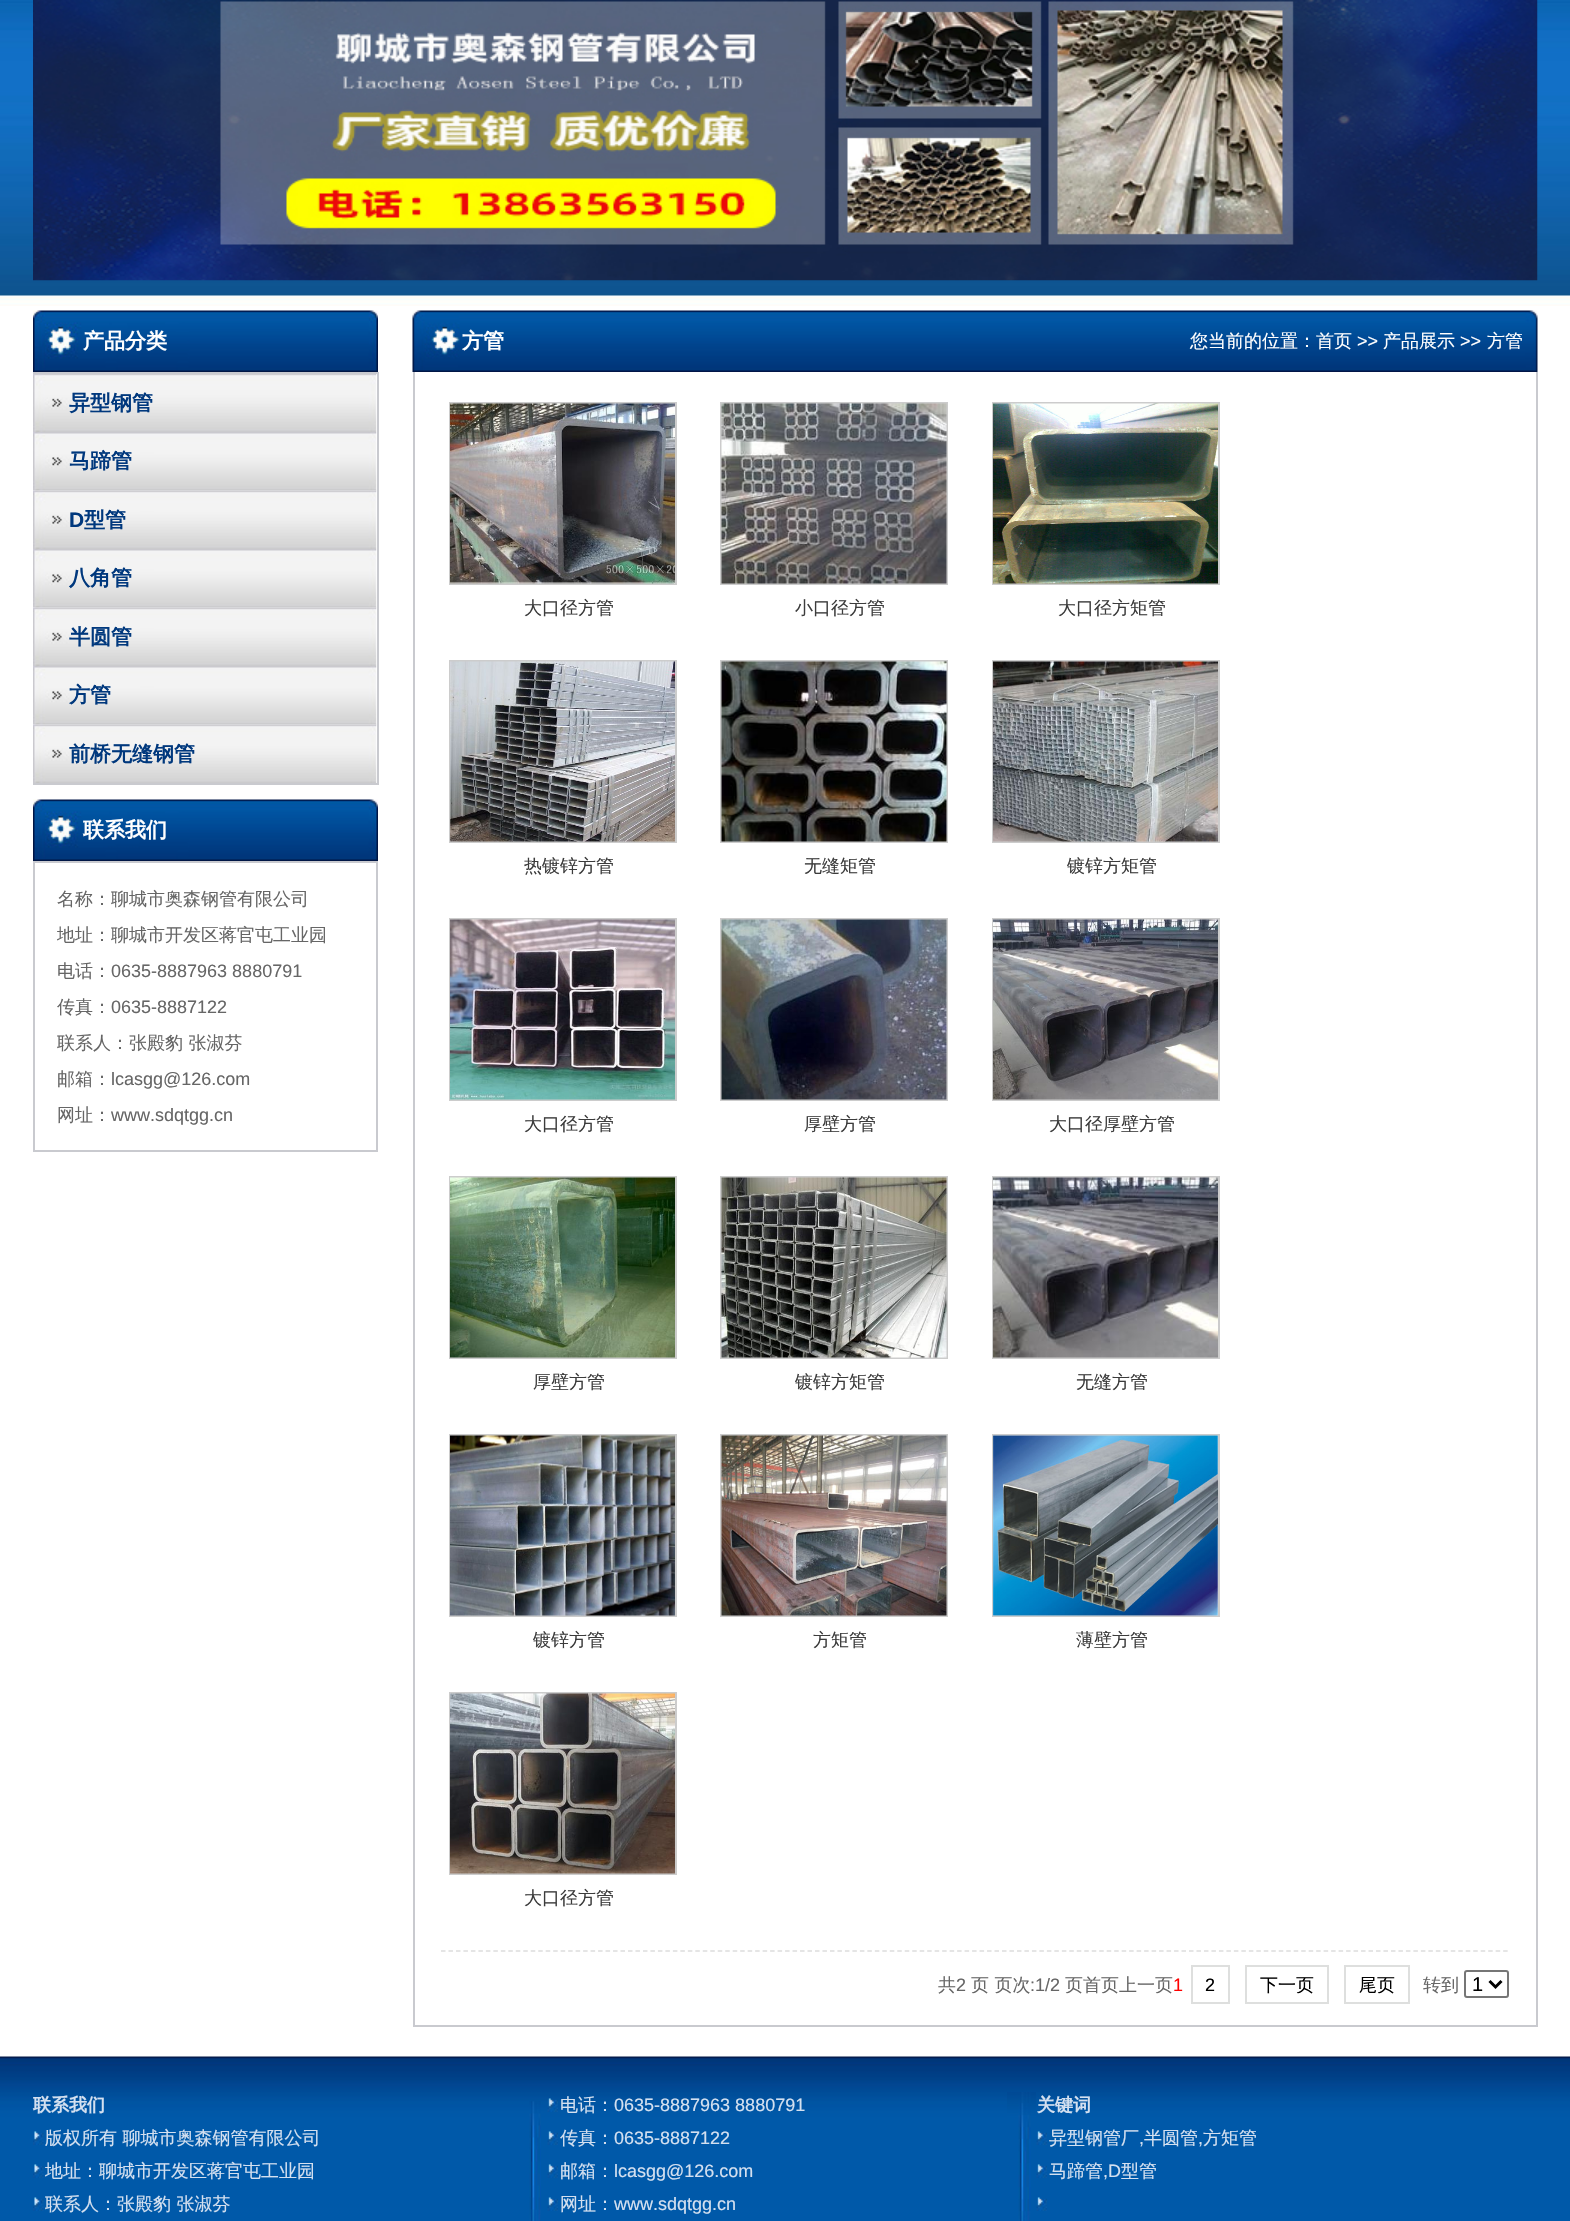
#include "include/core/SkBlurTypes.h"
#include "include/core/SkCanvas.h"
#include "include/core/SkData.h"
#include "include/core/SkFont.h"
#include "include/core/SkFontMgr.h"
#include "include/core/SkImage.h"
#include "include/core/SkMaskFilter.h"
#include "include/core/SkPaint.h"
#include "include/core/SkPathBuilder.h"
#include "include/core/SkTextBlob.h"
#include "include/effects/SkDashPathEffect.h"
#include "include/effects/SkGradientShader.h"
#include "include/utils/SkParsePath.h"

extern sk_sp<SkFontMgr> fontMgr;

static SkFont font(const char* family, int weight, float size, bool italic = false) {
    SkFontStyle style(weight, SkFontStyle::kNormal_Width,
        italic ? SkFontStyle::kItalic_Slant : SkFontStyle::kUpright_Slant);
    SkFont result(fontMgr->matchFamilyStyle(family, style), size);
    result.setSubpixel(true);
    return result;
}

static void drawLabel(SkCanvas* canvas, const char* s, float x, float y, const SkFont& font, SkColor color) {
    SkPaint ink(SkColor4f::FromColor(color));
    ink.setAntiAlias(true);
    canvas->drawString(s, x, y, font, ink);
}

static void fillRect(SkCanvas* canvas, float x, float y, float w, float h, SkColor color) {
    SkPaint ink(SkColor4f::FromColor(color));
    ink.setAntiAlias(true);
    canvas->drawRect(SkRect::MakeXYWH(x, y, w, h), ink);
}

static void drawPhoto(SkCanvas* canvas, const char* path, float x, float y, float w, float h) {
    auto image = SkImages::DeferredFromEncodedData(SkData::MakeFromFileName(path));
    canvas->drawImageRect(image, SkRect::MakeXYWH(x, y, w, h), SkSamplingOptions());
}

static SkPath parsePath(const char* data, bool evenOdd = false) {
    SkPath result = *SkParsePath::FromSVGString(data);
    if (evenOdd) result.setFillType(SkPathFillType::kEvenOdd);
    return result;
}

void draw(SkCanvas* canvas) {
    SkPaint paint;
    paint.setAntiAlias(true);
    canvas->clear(0xFFFFFFFF);
    drawPhoto(canvas, "assets/img1.png", 0, 0, 1570, 306);
    drawPhoto(canvas, "assets/img2.png", 33, 0, 1505, 281);
    drawPhoto(canvas, "assets/img3.png", 33, 310, 345, 62);
    SkFont font1 = font("WenQuanYi Zen Hei", 700, 21);
    drawLabel(canvas, "产品分类", 83, 348, font1, 0xFFFFFFFF);
    fillRect(canvas, 33, 372, 345, 2, 0xFFC9CACF);
    fillRect(canvas, 377, 372, 2, 413, 0xFFC9CACF);
    fillRect(canvas, 33, 783, 345, 2, 0xFFC9CACF);
    drawPhoto(canvas, "assets/img4.png", 33, 374, 344, 58);
    drawLabel(canvas, "异型钢管", 69, 410, font1, 0xFF00387D);
    drawPhoto(canvas, "assets/img5.png", 33, 432, 344, 59);
    drawLabel(canvas, "马蹄管", 69, 468, font1, 0xFF00387D);
    drawPhoto(canvas, "assets/img6.png", 33, 490, 344, 59);
    SkFont font2 = font("Liberation Sans", 700, 21);
    drawLabel(canvas, "D", 69, 527, font2, 0xFF00387D);
    drawLabel(canvas, "型管", 84, 527, font1, 0xFF00387D);
    drawPhoto(canvas, "assets/img5.png", 33, 549, 344, 59);
    drawLabel(canvas, "八角管", 69, 585, font1, 0xFF00387D);
    drawPhoto(canvas, "assets/img6.png", 33, 607, 344, 59);
    drawLabel(canvas, "半圆管", 69, 644, font1, 0xFF00387D);
    drawPhoto(canvas, "assets/img5.png", 33, 666, 344, 59);
    drawLabel(canvas, "方管", 69, 702, font1, 0xFF00387D);
    drawPhoto(canvas, "assets/img6.png", 33, 724, 344, 59);
    drawLabel(canvas, "前桥无缝钢管", 69, 761, font1, 0xFF00387D);
    drawPhoto(canvas, "assets/img3.png", 33, 799, 345, 62);
    drawLabel(canvas, "联系我们", 83, 837, font1, 0xFFFFFFFF);
    paint.setStroke(true);
    paint.setStrokeWidth(2);
    paint.setColor(0xFFC9CACF);
    canvas->drawRect(SkRect::MakeXYWH(34, 862, 343, 289), paint);
    SkFont font3 = font("WenQuanYi Zen Hei", 500, 18);
    drawLabel(canvas, "名称：聊城市奥森钢管有限公司", 57, 905, font3, 0xFF666666);
    drawLabel(canvas, "地址：聊城市开发区蒋官屯工业园", 57, 941, font3, 0xFF666666);
    drawLabel(canvas, "电话：", 57, 977, font3, 0xFF666666);
    SkFont font4 = font("Liberation Sans", 400, 18);
    drawLabel(canvas, "0635-8887963 8880791", 111, 977, font4, 0xFF666666);
    drawLabel(canvas, "传真：", 57, 1013, font3, 0xFF666666);
    drawLabel(canvas, "0635-8887122", 111, 1013, font4, 0xFF666666);
    drawLabel(canvas, "联系人：张殿豹 张淑芬", 57, 1049, font3, 0xFF666666);
    drawLabel(canvas, "邮箱：", 57, 1085, font3, 0xFF666666);
    drawLabel(canvas, "lcasgg@126.com", 111, 1085, font4, 0xFF666666);
    drawLabel(canvas, "网址：", 57, 1121, font3, 0xFF666666);
    drawLabel(canvas, "www.sdqtgg.cn", 111, 1121, font4, 0xFF666666);
    drawPhoto(canvas, "assets/img7.png", 412, 310, 1126, 62);
    drawLabel(canvas, "方管", 462, 348, font1, 0xFFFFFFFF);
    drawLabel(canvas, "您当前的位置：首页", 1190, 347, font3, 0xFFFFFFFF);
    drawLabel(canvas, ">>", 1357, 347, font4, 0xFFFFFFFF);
    drawLabel(canvas, "产品展示", 1383, 347, font3, 0xFFFFFFFF);
    drawLabel(canvas, ">>", 1460, 347, font4, 0xFFFFFFFF);
    drawLabel(canvas, "方管", 1487, 347, font3, 0xFFFFFFFF);
    fillRect(canvas, 1536, 372, 2, 1655, 0xFFC9CACF);
    fillRect(canvas, 413, 2025, 1125, 2, 0xFFC9CACF);
    fillRect(canvas, 413, 372, 2, 1655, 0xFFC9CACF);
    paint.setColor(0xFFCCCCCC);
    canvas->drawRect(SkRect::MakeXYWH(450, 403, 226, 181), paint);
    drawPhoto(canvas, "assets/img8.png", 450, 403, 225, 181);
    drawLabel(canvas, "大口径方管", 524, 614, font3, 0xFF3C3C3C);
    canvas->drawRect(SkRect::MakeXYWH(721, 403, 226, 181), paint);
    drawPhoto(canvas, "assets/img9.png", 721, 403, 226, 181);
    drawLabel(canvas, "小口径方管", 795, 614, font3, 0xFF3C3C3C);
    canvas->drawRect(SkRect::MakeXYWH(993, 403, 226, 181), paint);
    drawPhoto(canvas, "assets/img10.png", 993, 403, 225, 181);
    drawLabel(canvas, "大口径方矩管", 1058, 614, font3, 0xFF3C3C3C);
    canvas->drawRect(SkRect::MakeXYWH(450, 661, 226, 181), paint);
    drawPhoto(canvas, "assets/img11.png", 450, 661, 225, 181);
    drawLabel(canvas, "热镀锌方管", 524, 872, font3, 0xFF3C3C3C);
    canvas->drawRect(SkRect::MakeXYWH(721, 661, 226, 181), paint);
    drawPhoto(canvas, "assets/img12.png", 721, 661, 226, 181);
    drawLabel(canvas, "无缝矩管", 804, 872, font3, 0xFF3C3C3C);
    canvas->drawRect(SkRect::MakeXYWH(993, 661, 226, 181), paint);
    drawPhoto(canvas, "assets/img13.png", 993, 661, 225, 181);
    drawLabel(canvas, "镀锌方矩管", 1067, 872, font3, 0xFF3C3C3C);
    canvas->drawRect(SkRect::MakeXYWH(450, 919, 226, 181), paint);
    drawPhoto(canvas, "assets/img14.png", 450, 919, 225, 181);
    drawLabel(canvas, "大口径方管", 524, 1130, font3, 0xFF3C3C3C);
    canvas->drawRect(SkRect::MakeXYWH(721, 919, 226, 181), paint);
    drawPhoto(canvas, "assets/img15.png", 721, 919, 226, 181);
    drawLabel(canvas, "厚壁方管", 804, 1130, font3, 0xFF3C3C3C);
    canvas->drawRect(SkRect::MakeXYWH(993, 919, 226, 181), paint);
    drawPhoto(canvas, "assets/img16.png", 993, 919, 225, 181);
    drawLabel(canvas, "大口径厚壁方管", 1049, 1130, font3, 0xFF3C3C3C);
    canvas->drawRect(SkRect::MakeXYWH(450, 1177, 226, 181), paint);
    drawPhoto(canvas, "assets/img17.png", 450, 1177, 225, 181);
    drawLabel(canvas, "厚壁方管", 533, 1388, font3, 0xFF3C3C3C);
    canvas->drawRect(SkRect::MakeXYWH(721, 1177, 226, 181), paint);
    drawPhoto(canvas, "assets/img18.png", 721, 1177, 226, 181);
    drawLabel(canvas, "镀锌方矩管", 795, 1388, font3, 0xFF3C3C3C);
    canvas->drawRect(SkRect::MakeXYWH(993, 1177, 226, 181), paint);
    drawPhoto(canvas, "assets/img19.png", 993, 1177, 225, 181);
    drawLabel(canvas, "无缝方管", 1076, 1388, font3, 0xFF3C3C3C);
    canvas->drawRect(SkRect::MakeXYWH(450, 1435, 226, 181), paint);
    drawPhoto(canvas, "assets/img20.png", 450, 1435, 225, 181);
    drawLabel(canvas, "镀锌方管", 533, 1646, font3, 0xFF3C3C3C);
    canvas->drawRect(SkRect::MakeXYWH(721, 1435, 226, 181), paint);
    drawPhoto(canvas, "assets/img21.png", 721, 1435, 226, 181);
    drawLabel(canvas, "方矩管", 813, 1646, font3, 0xFF3C3C3C);
    canvas->drawRect(SkRect::MakeXYWH(993, 1435, 226, 181), paint);
    drawPhoto(canvas, "assets/img22.png", 993, 1435, 225, 181);
    drawLabel(canvas, "薄壁方管", 1076, 1646, font3, 0xFF3C3C3C);
    canvas->drawRect(SkRect::MakeXYWH(450, 1693, 226, 181), paint);
    drawPhoto(canvas, "assets/img23.png", 450, 1693, 225, 181);
    drawLabel(canvas, "大口径方管", 524, 1904, font3, 0xFF3C3C3C);
    paint.setStrokeWidth(1.5f);
    paint.setColor(0xFFDDDDDD);
    paint.setPathEffect(SkDashPathEffect::Make({{4.5f, 2.98f}}, 0));
    canvas->drawPath(parsePath("M441 1951H1509"), paint);
    paint.setPathEffect(nullptr);
    drawLabel(canvas, "共", 938, 1991, font3, 0xFF666666);
    drawLabel(canvas, "2", 956, 1991, font4, 0xFF666666);
    drawLabel(canvas, "页 页次", 971, 1991, font3, 0xFF666666);
    drawLabel(canvas, ":1/2", 1030, 1991, font4, 0xFF666666);
    drawLabel(canvas, "页首页上一页", 1065, 1991, font3, 0xFF666666);
    drawLabel(canvas, "1", 1173, 1991, font4, 0xFFFF0000);
    paint.setStrokeWidth(2);
    paint.setColor(0xFFDEDFDE);
    canvas->drawRect(SkRect::MakeXYWH(1192, 1966, 37, 37), paint);
    drawLabel(canvas, "2", 1205, 1991, font4, 0xFF000000);
    canvas->drawRect(SkRect::MakeXYWH(1246, 1966, 82, 37), paint);
    drawLabel(canvas, "下一页", 1260, 1991, font3, 0xFF000000);
    canvas->drawRect(SkRect::MakeXYWH(1345, 1966, 64, 37), paint);
    drawLabel(canvas, "尾页", 1359, 1991, font3, 0xFF000000);
    drawLabel(canvas, "转到", 1423, 1991, font3, 0xFF666666);
    paint.setColor(0xFF767676);
    canvas->drawRoundRect(SkRect::MakeXYWH(1465, 1971, 43, 26), 2, 2, paint);
    paint.setStrokeWidth(3);
    paint.setColor(0xFF000000);
    canvas->drawPath(parsePath("M1489.5 1981L1495.5 1987L1501.5 1981"), paint);
    SkFont font5 = font("Liberation Sans", 400, 20);
    drawLabel(canvas, "1", 1472, 1991, font5, 0xFF000000);
    drawPhoto(canvas, "assets/img24.png", 0, 2056, 1570, 165);
    drawPhoto(canvas, "assets/img25.png", 529, 2101, 12, 120);
    SkFont font6 = font("WenQuanYi Zen Hei", 700, 18);
    drawLabel(canvas, "联系我们", 33, 2111, font6, 0xFFD4E0F0);
    drawPhoto(canvas, "assets/img26.png", 33, 2131, 11, 14);
    drawLabel(canvas, "版权所有 聊城市奥森钢管有限公司", 45, 2144, font3, 0xFFD4E0F0);
    drawPhoto(canvas, "assets/img26.png", 33, 2164, 11, 14);
    drawLabel(canvas, "地址：聊城市开发区蒋官屯工业园", 45, 2177, font3, 0xFFD4E0F0);
    drawPhoto(canvas, "assets/img26.png", 33, 2197, 11, 14);
    drawLabel(canvas, "联系人：张殿豹 张淑芬", 45, 2210, font3, 0xFFD4E0F0);
    drawPhoto(canvas, "assets/img27.png", 1007, 2092, 29, 129);
    drawPhoto(canvas, "assets/img28.png", 547, 2098, 11, 14);
    drawLabel(canvas, "电话：", 560, 2111, font3, 0xFFD4E0F0);
    drawLabel(canvas, "0635-8887963 8880791", 614, 2111, font4, 0xFFD4E0F0);
    drawPhoto(canvas, "assets/img29.png", 547, 2131, 11, 14);
    drawLabel(canvas, "传真：", 560, 2144, font3, 0xFFD4E0F0);
    drawLabel(canvas, "0635-8887122", 614, 2144, font4, 0xFFD4E0F0);
    drawPhoto(canvas, "assets/img29.png", 547, 2164, 11, 14);
    drawLabel(canvas, "邮箱：", 560, 2177, font3, 0xFFD4E0F0);
    drawLabel(canvas, "lcasgg@126.com", 614, 2177, font4, 0xFFD4E0F0);
    drawPhoto(canvas, "assets/img29.png", 547, 2197, 11, 14);
    drawLabel(canvas, "网址：", 560, 2210, font3, 0xFFD4E0F0);
    drawLabel(canvas, "www.sdqtgg.cn", 614, 2210, font4, 0xFFD4E0F0);
    drawLabel(canvas, "关键词", 1037, 2111, font6, 0xFFD4E0F0);
    drawPhoto(canvas, "assets/img30.png", 1036, 2131, 11, 14);
    drawLabel(canvas, "异型钢管厂", 1049, 2144, font3, 0xFFD4E0F0);
    drawLabel(canvas, ",", 1139, 2144, font4, 0xFFD4E0F0);
    drawLabel(canvas, "半圆管", 1144, 2144, font3, 0xFFD4E0F0);
    drawLabel(canvas, ",", 1198, 2144, font4, 0xFFD4E0F0);
    drawLabel(canvas, "方矩管", 1203, 2144, font3, 0xFFD4E0F0);
    drawPhoto(canvas, "assets/img30.png", 1036, 2164, 11, 14);
    drawLabel(canvas, "马蹄管", 1049, 2177, font3, 0xFFD4E0F0);
    drawLabel(canvas, ",D", 1103, 2177, font4, 0xFFD4E0F0);
    drawLabel(canvas, "型管", 1121, 2177, font3, 0xFFD4E0F0);
    drawPhoto(canvas, "assets/img30.png", 1036, 2197, 11, 14);
}
